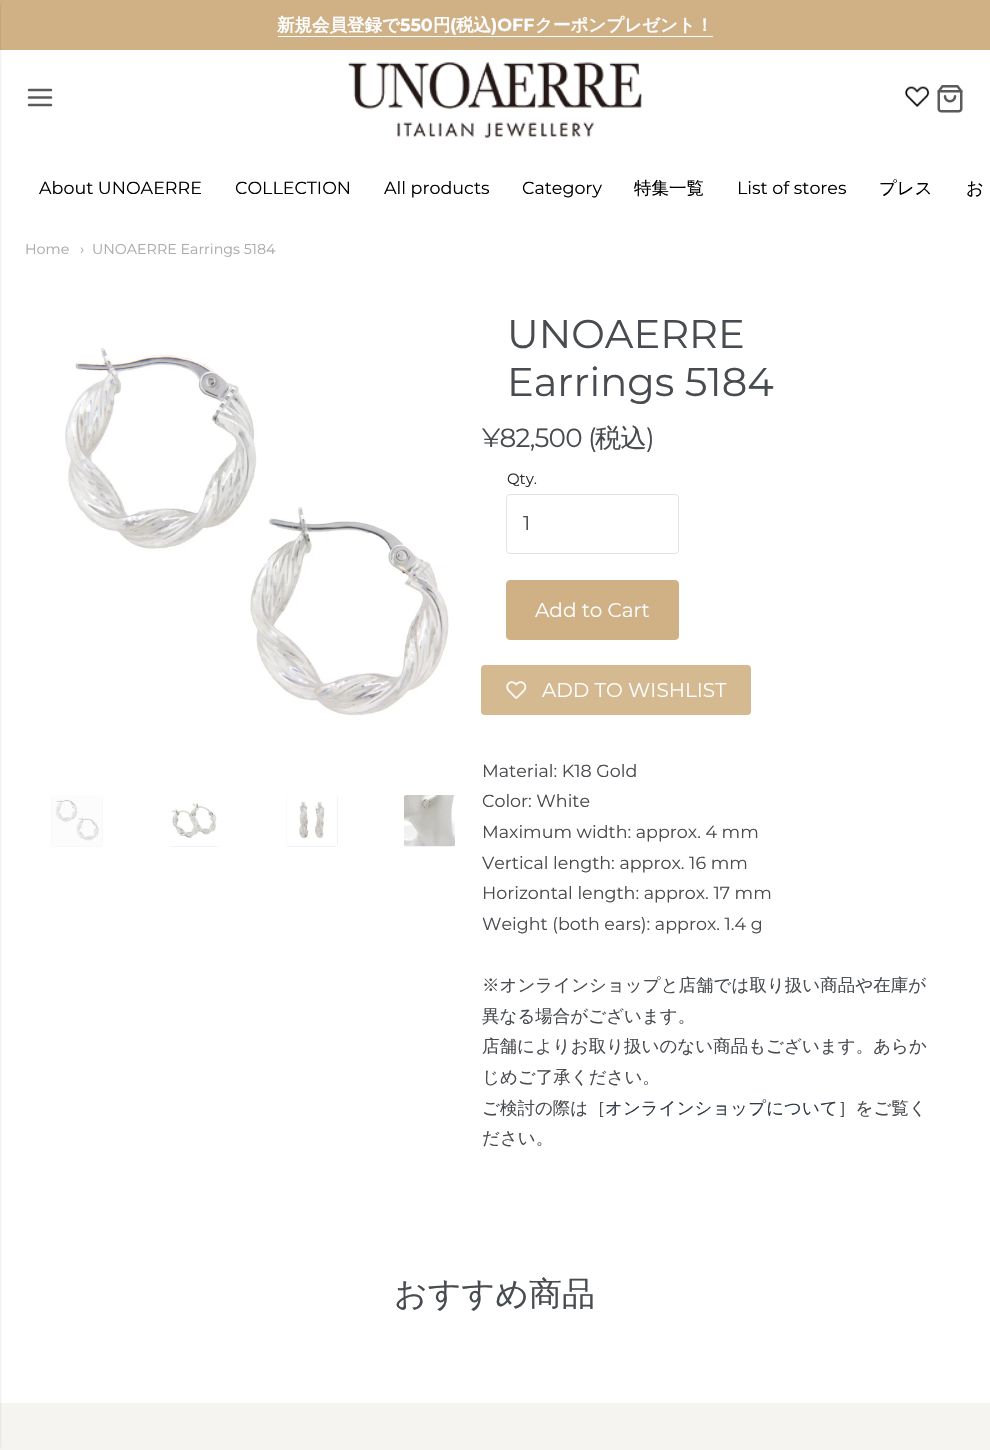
#include "include/core/SkBlurTypes.h"
#include "include/core/SkCanvas.h"
#include "include/core/SkData.h"
#include "include/core/SkFont.h"
#include "include/core/SkFontMgr.h"
#include "include/core/SkImage.h"
#include "include/core/SkMaskFilter.h"
#include "include/core/SkPaint.h"
#include "include/core/SkPathBuilder.h"
#include "include/core/SkTextBlob.h"
#include "include/effects/SkDashPathEffect.h"
#include "include/effects/SkGradientShader.h"
#include "include/utils/SkParsePath.h"

extern sk_sp<SkFontMgr> fontMgr;

static SkFont font(const char* family, int weight, float size, bool italic = false) {
    SkFontStyle style(weight, SkFontStyle::kNormal_Width,
        italic ? SkFontStyle::kItalic_Slant : SkFontStyle::kUpright_Slant);
    SkFont result(fontMgr->matchFamilyStyle(family, style), size);
    result.setSubpixel(true);
    return result;
}

static void drawLabel(SkCanvas* canvas, const char* s, float x, float y, const SkFont& font, SkColor color) {
    SkPaint ink(SkColor4f::FromColor(color));
    ink.setAntiAlias(true);
    canvas->drawString(s, x, y, font, ink);
}

static void drawTracked(SkCanvas* canvas, const char* s, float x, float y, const SkFont& font, const SkPaint& ink, float letter, float word) {
    std::vector<SkGlyphID> glyphs(font.countText(s, strlen(s), SkTextEncoding::kUTF8));
    std::vector<float> xs(glyphs.size());
    font.textToGlyphs(s, strlen(s), SkTextEncoding::kUTF8, glyphs);
    font.getXPos(glyphs, xs, x);
    float extra = 0;
    for (size_t i = 0; i < glyphs.size(); i++) {
        xs[i] += extra;
        extra += letter + word * (glyphs[i] == font.unicharToGlyph(' '));
    }
    canvas->drawTextBlob(SkTextBlob::MakeFromPosHGlyphs(glyphs, xs, y, font), 0, 0, ink);
}

static void fillRect(SkCanvas* canvas, float x, float y, float w, float h, SkColor color) {
    SkPaint ink(SkColor4f::FromColor(color));
    ink.setAntiAlias(true);
    canvas->drawRect(SkRect::MakeXYWH(x, y, w, h), ink);
}

static void fillRRect(SkCanvas* canvas, float x, float y, float w, float h, float radius, SkColor color) {
    SkPaint ink(SkColor4f::FromColor(color));
    ink.setAntiAlias(true);
    canvas->drawRoundRect(SkRect::MakeXYWH(x, y, w, h), radius, radius, ink);
}

static void drawPhoto(SkCanvas* canvas, const char* path, float x, float y, float w, float h) {
    auto image = SkImages::DeferredFromEncodedData(SkData::MakeFromFileName(path));
    canvas->drawImageRect(image, SkRect::MakeXYWH(x, y, w, h), SkSamplingOptions());
}

static SkPath parsePath(const char* data, bool evenOdd = false) {
    SkPath result = *SkParsePath::FromSVGString(data);
    if (evenOdd) result.setFillType(SkPathFillType::kEvenOdd);
    return result;
}

void draw(SkCanvas* canvas) {
    SkPaint paint;
    paint.setAntiAlias(true);
    canvas->clear(0xFFFFFFFF);
    fillRect(canvas, 0, 0, 990, 50, 0xFFCFB185);
    fillRect(canvas, 0, 1403, 990, 47, 0xFFF6F4F1);
    paint.setColor(0x33000000);
    paint.setMaskFilter(SkMaskFilter::MakeBlur(kNormal_SkBlurStyle, 1));
    canvas->drawRect(SkRect::MakeXYWH(-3, 3, 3, 1445), paint);
    paint.setMaskFilter(nullptr);
    SkFont font1 = font("WenQuanYi Zen Hei", 700, 17.5f);
    drawLabel(canvas, "新規会員登録で", 277, 31, font1, 0xFFFCFDFF);
    SkFont font2 = font("Montserrat", 700, 17.5f);
    drawLabel(canvas, "550", 400, 31, font2, 0xFFFCFDFF);
    drawLabel(canvas, "円", 433, 31, font1, 0xFFFCFDFF);
    drawLabel(canvas, "(", 450, 31, font2, 0xFFFCFDFF);
    fillRect(canvas, 278, 36, 435, 1, 0xFFFCFDFF);
    drawLabel(canvas, "税込", 456, 31, font1, 0xFFFCFDFF);
    drawLabel(canvas, ")OFF", 491, 31, font2, 0xFFFCFDFF);
    drawLabel(canvas, "クーポンプレゼント！", 535, 31, font1, 0xFFFCFDFF);
    paint.setStroke(true);
    paint.setStrokeWidth(2.5f);
    paint.setStrokeCap(SkPaint::kRound_Cap);
    paint.setStrokeJoin(SkPaint::kRound_Join);
    paint.setColor(0xFF5B5B5B);
    canvas->drawPath(parsePath("M29 97.5H51M29 90H51M29 105H51"), paint);
    drawPhoto(canvas, "assets/img1.png", 348, 62, 294, 76);
    drawPhoto(canvas, "assets/img2.png", 905, 86, 25, 21);
    drawPhoto(canvas, "assets/img3.png", 937, 85, 26, 28);
    SkFont font3 = font("Montserrat", 400, 17.5f);
    drawLabel(canvas, "About UNOAERRE", 39, 194, font3, 0xFF000000);
    drawLabel(canvas, "COLLECTION", 235, 194, font3, 0xFF000000);
    drawLabel(canvas, "All products", 384, 194, font3, 0xFF000000);
    drawLabel(canvas, "Category", 522, 194, font3, 0xFF000000);
    SkFont font4 = font("WenQuanYi Zen Hei", 500, 17.5f);
    drawLabel(canvas, "特集一覧", 634, 194, font4, 0xFF000000);
    drawLabel(canvas, "List of stores", 737, 194, font3, 0xFF000000);
    drawLabel(canvas, "プレス", 879, 194, font4, 0xFF000000);
    drawLabel(canvas, "お", 966, 194, font4, 0xFF000000);
    SkFont font5 = font("Montserrat", 400, 14.25f);
    drawLabel(canvas, "Home", 25, 254, font5, 0xFFA9AAAA);
    drawLabel(canvas, "›", 80, 254, font5, 0xFFA9AAAA);
    drawLabel(canvas, "UNOAERRE Earrings 5184", 92, 254, font5, 0xFFA9AAAA);
    drawPhoto(canvas, "assets/img4.png", 65, 347, 384, 369);
    paint.setStroke(false);
    paint.setColor(0xFFF7F8F8);
    canvas->drawRoundRect(SkRect::MakeXYWH(50.5f, 794.5f, 53, 53), 3.5f, 3.5f, paint);
    paint.setStroke(true);
    paint.setStrokeWidth(1);
    paint.setStrokeCap(SkPaint::kButt_Cap);
    paint.setStrokeJoin(SkPaint::kMiter_Join);
    paint.setColor(0xFFFFFFFF);
    canvas->drawRoundRect(SkRect::MakeXYWH(50.5f, 794.5f, 53, 53), 3.5f, 3.5f, paint);
    drawPhoto(canvas, "assets/img5.png", 52, 795, 50, 51);
    paint.setStroke(false);
    paint.setColor(0xFFF1F3F4);
    canvas->drawRoundRect(SkRect::MakeXYWH(168.5f, 794.5f, 52, 53), 3.5f, 3.5f, paint);
    paint.setStroke(true);
    paint.setColor(0xFFFFFFFF);
    canvas->drawRoundRect(SkRect::MakeXYWH(168.5f, 794.5f, 52, 53), 3.5f, 3.5f, paint);
    drawPhoto(canvas, "assets/img6.png", 169, 795, 51, 51);
    paint.setStroke(false);
    paint.setColor(0xFFF1F3F4);
    canvas->drawRoundRect(SkRect::MakeXYWH(285.5f, 794.5f, 53, 53), 3.5f, 3.5f, paint);
    paint.setStroke(true);
    paint.setColor(0xFFFFFFFF);
    canvas->drawRoundRect(SkRect::MakeXYWH(285.5f, 794.5f, 53, 53), 3.5f, 3.5f, paint);
    drawPhoto(canvas, "assets/img7.png", 286, 795, 51, 51);
    paint.setStroke(false);
    paint.setColor(0xFFF1F3F4);
    canvas->drawRoundRect(SkRect::MakeXYWH(403.5f, 794.5f, 52, 53), 3.5f, 3.5f, paint);
    paint.setStroke(true);
    paint.setColor(0xFFFFFFFF);
    canvas->drawRoundRect(SkRect::MakeXYWH(403.5f, 794.5f, 52, 53), 3.5f, 3.5f, paint);
    drawPhoto(canvas, "assets/img8.png", 403, 795, 52, 51);
    SkFont font6 = font("Montserrat", 400, 40);
    drawLabel(canvas, "UNOAERRE", 507, 348, font6, 0xFF484B4F);
    drawLabel(canvas, "Earrings 5184", 507, 396, font6, 0xFF484B4F);
    SkFont font7 = font("Montserrat", 400, 26.25f);
    paint.setStroke(false);
    paint.setColor(0xFF484B4F);
    drawTracked(canvas, "¥82,500 (", 482, 447, font7, paint, -0.75f, 0);
    SkFont font8 = font("WenQuanYi Zen Hei", 500, 26.25f);
    drawTracked(canvas, "税込", 595, 447, font8, paint, -0.75f, 0);
    drawTracked(canvas, ")", 646, 447, font7, paint, -0.75f, 0);
    SkFont font9 = font("Montserrat", 400, 15);
    drawLabel(canvas, "Qty.", 507, 484, font9, 0xFF2A2B2B);
    paint.setStroke(true);
    paint.setColor(0xFFE1E3E4);
    canvas->drawRoundRect(SkRect::MakeXYWH(506.5f, 494.5f, 172, 59), 3.5f, 3.5f, paint);
    SkFont font10 = font("Montserrat", 400, 20);
    drawLabel(canvas, "1", 523, 530, font10, 0xFF484B4F);
    paint.setStroke(false);
    paint.setColor(0xFFCFB185);
    canvas->drawRoundRect(SkRect::MakeXYWH(506.5f, 580.5f, 172, 59), 3.5f, 3.5f, paint);
    paint.setStroke(true);
    canvas->drawRoundRect(SkRect::MakeXYWH(506.5f, 580.5f, 172, 59), 3.5f, 3.5f, paint);
    drawLabel(canvas, "Add to Cart", 535, 617, font10, 0xFFFCFDFF);
    fillRRect(canvas, 481, 665, 270, 50, 4, 0xFFD4B991);
    drawPhoto(canvas, "assets/img9.png", 506, 681, 21, 18);
    drawLabel(canvas, "ADD TO WISHLIST", 542, 697, font10, 0xFFFCFDFF);
    drawLabel(canvas, "Material: K18 Gold", 482, 777, font3, 0xFF484B4F);
    drawLabel(canvas, "Color: White", 482, 807, font3, 0xFF484B4F);
    drawLabel(canvas, "Maximum width: approx. 4 mm", 482, 838, font3, 0xFF484B4F);
    drawLabel(canvas, "Vertical length: approx. 16 mm", 482, 869, font3, 0xFF484B4F);
    drawLabel(canvas, "Horizontal length: approx. 17 mm", 482, 899, font3, 0xFF484B4F);
    drawLabel(canvas, "Weight (both ears): approx. 1.4 g", 482, 930, font3, 0xFF484B4F);
    drawLabel(canvas, "※オンラインショップと店舗では取り扱い商品や在庫が", 482, 991, font4, 0xFF484B4F);
    drawLabel(canvas, "異なる場合がございます。", 482, 1022, font4, 0xFF484B4F);
    drawLabel(canvas, "店舗によりお取り扱いのない商品もございます。あらか", 482, 1052, font4, 0xFF484B4F);
    drawLabel(canvas, "じめご了承ください。", 482, 1083, font4, 0xFF484B4F);
    drawLabel(canvas, "ご検討の際は［", 482, 1114, font4, 0xFF484B4F);
    drawLabel(canvas, "オンラインショップについて", 605, 1114, font4, 0xFF313A47);
    drawLabel(canvas, "］をご覧く", 838, 1114, font4, 0xFF484B4F);
    drawLabel(canvas, "ださい。", 482, 1144, font4, 0xFF484B4F);
    SkFont font11 = font("WenQuanYi Zen Hei", 500, 33);
    drawLabel(canvas, "おすすめ商品", 394, 1305, font11, 0xFF484B4F);
}
